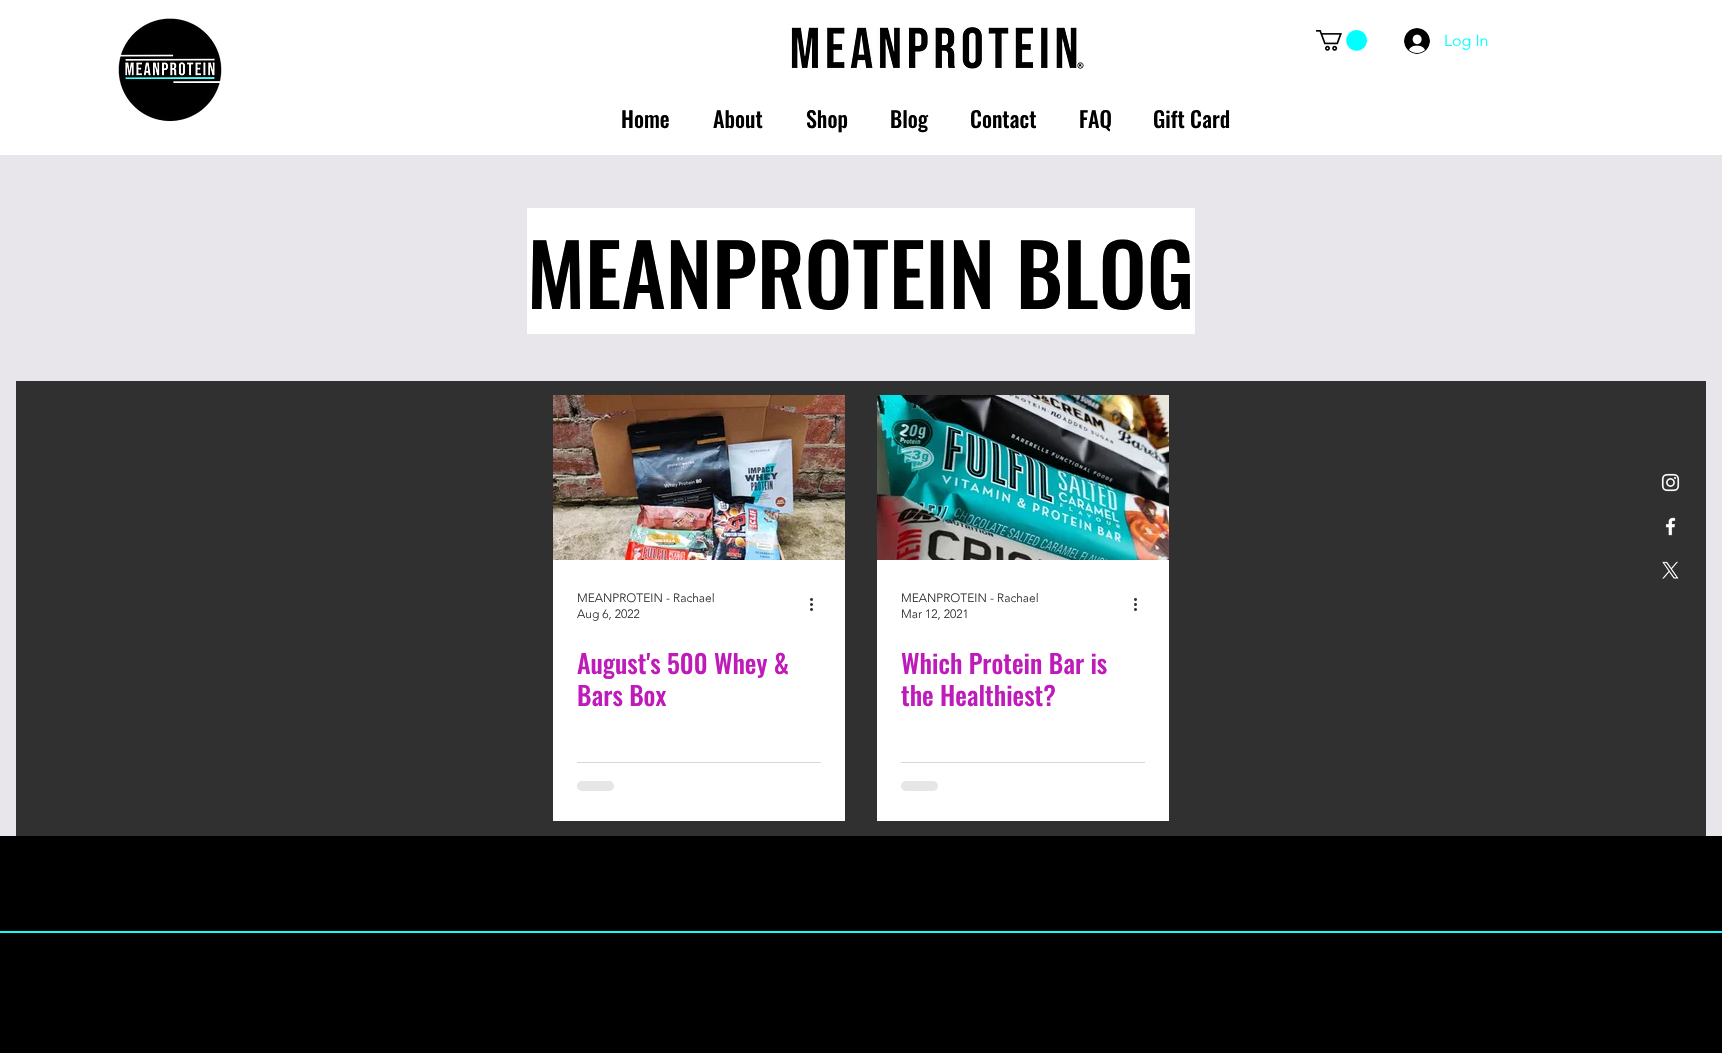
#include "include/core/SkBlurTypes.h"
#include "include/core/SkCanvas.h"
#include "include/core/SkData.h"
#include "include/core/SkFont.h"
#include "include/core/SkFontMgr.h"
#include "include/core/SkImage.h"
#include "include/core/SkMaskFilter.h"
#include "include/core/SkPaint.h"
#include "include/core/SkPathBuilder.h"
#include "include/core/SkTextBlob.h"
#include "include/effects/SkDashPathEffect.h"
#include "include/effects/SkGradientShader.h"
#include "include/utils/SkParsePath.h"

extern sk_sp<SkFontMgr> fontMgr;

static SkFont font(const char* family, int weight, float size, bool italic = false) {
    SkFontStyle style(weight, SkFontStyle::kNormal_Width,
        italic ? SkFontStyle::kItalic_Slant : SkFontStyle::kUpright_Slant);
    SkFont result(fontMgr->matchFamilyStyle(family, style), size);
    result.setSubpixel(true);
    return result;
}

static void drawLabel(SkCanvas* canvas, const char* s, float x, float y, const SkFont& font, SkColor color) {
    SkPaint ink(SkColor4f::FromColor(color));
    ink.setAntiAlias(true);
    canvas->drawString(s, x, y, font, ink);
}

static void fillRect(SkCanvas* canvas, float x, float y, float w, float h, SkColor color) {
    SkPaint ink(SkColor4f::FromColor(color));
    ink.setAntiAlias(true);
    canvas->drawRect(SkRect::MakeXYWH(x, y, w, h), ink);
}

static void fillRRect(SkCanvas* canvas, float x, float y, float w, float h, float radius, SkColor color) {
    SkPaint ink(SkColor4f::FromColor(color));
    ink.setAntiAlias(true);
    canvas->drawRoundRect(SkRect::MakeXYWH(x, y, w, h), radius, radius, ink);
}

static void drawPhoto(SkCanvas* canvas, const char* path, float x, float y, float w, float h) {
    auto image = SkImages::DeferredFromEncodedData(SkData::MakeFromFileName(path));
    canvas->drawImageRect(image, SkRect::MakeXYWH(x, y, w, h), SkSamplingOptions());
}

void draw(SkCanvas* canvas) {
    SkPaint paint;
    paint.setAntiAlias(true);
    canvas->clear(0xFFE9E6EB);
    fillRect(canvas, 0, 0, 1722, 155, 0xFFFFFFFF);
    drawPhoto(canvas, "assets/img1.png", 118, 18, 104, 104);
    drawPhoto(canvas, "assets/img2.png", 791, 27, 295, 42);
    drawPhoto(canvas, "assets/img3.png", 1316, 30, 51, 21);
    drawPhoto(canvas, "assets/img4.png", 1404, 28, 26, 26);
    SkFont font1 = font("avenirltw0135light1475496", 300, 16);
    drawLabel(canvas, "Log In", 1444, 46, font1, 0xFF00FFFF);
    SkFont font2 = font("Oswald", 500, 22);
    drawLabel(canvas, "Home", 621, 128, font2, 0xFF000000);
    drawLabel(canvas, "About", 713, 128, font2, 0xFF000000);
    drawLabel(canvas, "Shop", 806, 128, font2, 0xFF000000);
    drawLabel(canvas, "Blog", 890, 128, font2, 0xFF000000);
    drawLabel(canvas, "Contact", 970, 128, font2, 0xFF000000);
    drawLabel(canvas, "FAQ", 1079, 128, font2, 0xFF000000);
    drawLabel(canvas, "Gift Card", 1153, 128, font2, 0xFF000000);
    fillRect(canvas, 527, 208, 668, 126, 0xFFFFFFFF);
    SkFont font3 = font("Oswald", 500, 85);
    drawLabel(canvas, "MEANPROTEIN BLOG", 527, 309, font3, 0xFF000000);
    fillRect(canvas, 16, 381, 1690, 455, 0xFF303030);
    fillRect(canvas, 553, 560, 292, 261, 0xFFFFFFFF);
    drawPhoto(canvas, "assets/img5.png", 553, 395, 292, 165);
    SkFont font4 = font("avenirltw0135light1475496", 300, 12);
    drawLabel(canvas, "MEANPROTEIN - Rachael", 577, 602, font4, 0xFF303030);
    drawLabel(canvas, "Aug 6, 2022", 577, 618, font4, 0xFF303030);
    drawPhoto(canvas, "assets/img6.png", 810, 598, 3, 13);
    SkFont font5 = font("Oswald", 500, 26);
    drawLabel(canvas, "August's 500 Whey &", 577, 674, font5, 0xFFBF1BBA);
    drawLabel(canvas, "Bars Box", 577, 706, font5, 0xFFBF1BBA);
    fillRect(canvas, 577, 762, 244, 1, 0xFFD6D6D6);
    fillRRect(canvas, 577, 781, 37, 10, 5, 0xFFE6E6E6);
    fillRect(canvas, 877, 560, 292, 261, 0xFFFFFFFF);
    drawPhoto(canvas, "assets/img7.png", 877, 395, 292, 165);
    drawLabel(canvas, "MEANPROTEIN - Rachael", 901, 602, font4, 0xFF303030);
    drawLabel(canvas, "Mar 12, 2021", 901, 618, font4, 0xFF303030);
    drawPhoto(canvas, "assets/img6.png", 1134, 598, 3, 13);
    drawLabel(canvas, "Which Protein Bar is", 901, 674, font5, 0xFFBF1BBA);
    drawLabel(canvas, "the Healthiest?", 901, 706, font5, 0xFFBF1BBA);
    fillRect(canvas, 901, 762, 244, 1, 0xFFD6D6D6);
    fillRRect(canvas, 901, 781, 37, 10, 5, 0xFFE6E6E6);
    drawPhoto(canvas, "assets/img8.png", 1661, 473, 19, 19);
    drawPhoto(canvas, "assets/img9.png", 1665, 517, 11, 19);
    drawPhoto(canvas, "assets/img10.png", 1662, 561, 17, 18);
    fillRect(canvas, 0, 836, 1722, 217, 0xFF000000);
    fillRect(canvas, 0, 931, 1722, 2, 0xFF0DFFFF);
}
